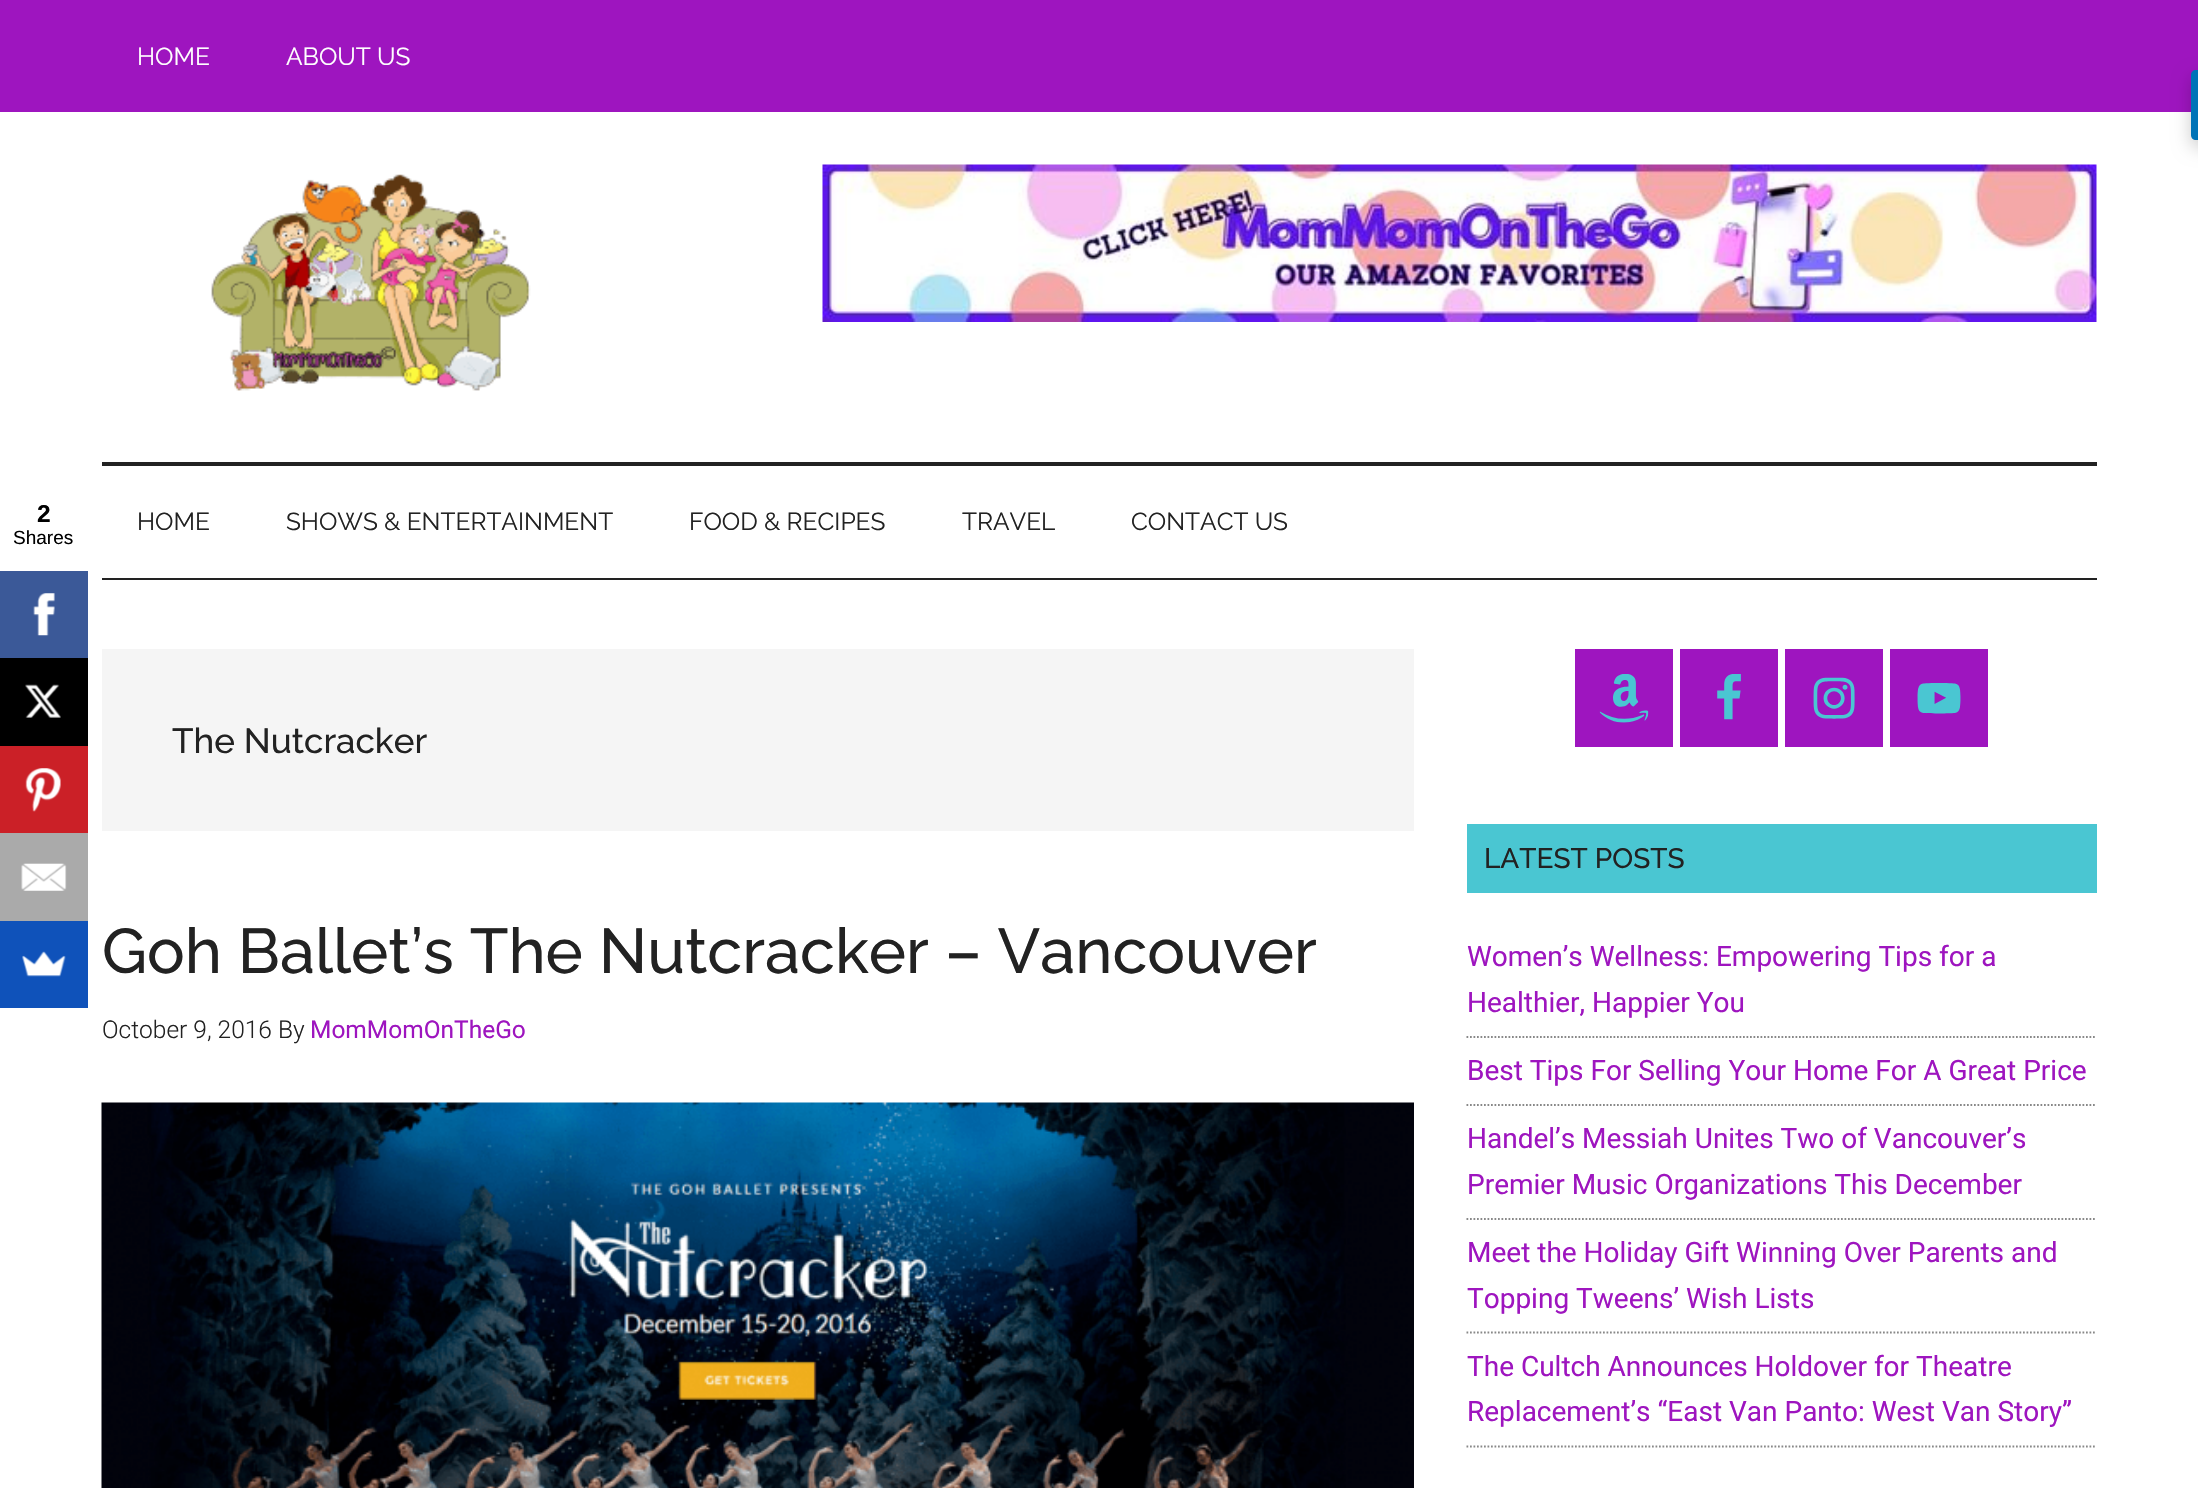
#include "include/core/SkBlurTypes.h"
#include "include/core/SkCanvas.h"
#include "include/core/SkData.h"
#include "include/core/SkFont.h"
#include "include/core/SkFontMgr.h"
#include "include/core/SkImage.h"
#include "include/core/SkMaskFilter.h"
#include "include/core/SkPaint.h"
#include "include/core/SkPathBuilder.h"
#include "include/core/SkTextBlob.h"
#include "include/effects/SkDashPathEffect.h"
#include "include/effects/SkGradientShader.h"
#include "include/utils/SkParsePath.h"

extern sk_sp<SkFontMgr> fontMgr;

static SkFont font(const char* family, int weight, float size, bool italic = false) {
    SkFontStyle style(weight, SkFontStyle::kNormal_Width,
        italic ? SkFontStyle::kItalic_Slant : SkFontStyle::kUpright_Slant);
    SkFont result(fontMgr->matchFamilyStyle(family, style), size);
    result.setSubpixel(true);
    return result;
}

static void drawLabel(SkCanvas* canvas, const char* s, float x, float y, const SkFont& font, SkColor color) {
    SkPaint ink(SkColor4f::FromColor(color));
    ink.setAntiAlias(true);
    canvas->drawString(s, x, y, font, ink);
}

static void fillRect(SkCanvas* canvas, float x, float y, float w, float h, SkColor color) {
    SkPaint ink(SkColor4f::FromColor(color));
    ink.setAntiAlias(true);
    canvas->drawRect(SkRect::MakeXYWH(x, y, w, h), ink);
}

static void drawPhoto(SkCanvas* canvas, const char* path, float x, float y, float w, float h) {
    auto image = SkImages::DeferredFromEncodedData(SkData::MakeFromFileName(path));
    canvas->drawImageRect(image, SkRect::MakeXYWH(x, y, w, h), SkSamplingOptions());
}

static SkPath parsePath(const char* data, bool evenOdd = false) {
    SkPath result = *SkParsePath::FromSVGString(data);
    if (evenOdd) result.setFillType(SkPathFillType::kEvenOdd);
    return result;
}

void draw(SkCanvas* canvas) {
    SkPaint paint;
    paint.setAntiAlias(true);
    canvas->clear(0xFFFFFFFF);
    fillRect(canvas, 0, 0, 2198, 112, 0xFF9E15BF);
    SkFont font1 = font("Raleway", 400, 24.5f);
    drawLabel(canvas, "HOME", 137, 65, font1, 0xFFFFFFFF);
    drawLabel(canvas, "ABOUT US", 286, 65, font1, 0xFFFFFFFF);
    fillRect(canvas, 102, 462, 1995, 4, 0xFF222222);
    drawPhoto(canvas, "assets/img1.png", 211, 174, 320, 217);
    drawPhoto(canvas, "assets/img2.png", 822, 164, 1275, 158);
    fillRect(canvas, 102, 578, 1995, 2, 0xFF222222);
    drawLabel(canvas, "HOME", 137, 530, font1, 0xFF222222);
    drawLabel(canvas, "SHOWS & ENTERTAINMENT", 286, 530, font1, 0xFF222222);
    drawLabel(canvas, "FOOD & RECIPES", 689, 530, font1, 0xFF222222);
    drawLabel(canvas, "TRAVEL", 962, 530, font1, 0xFF222222);
    drawLabel(canvas, "CONTACT US", 1131, 530, font1, 0xFF222222);
    fillRect(canvas, 102, 649, 1312, 182, 0xFFF5F5F5);
    SkFont font2 = font("Raleway", 500, 35);
    drawLabel(canvas, "The Nutcracker", 172, 753, font2, 0xFF222222);
    SkFont font3 = font("Raleway", 500, 63);
    drawLabel(canvas, "Goh Ballet’s The Nutcracker – Vancouver", 102, 973, font3, 0xFF222222);
    SkFont font4 = font("Roboto", 300, 24.5f);
    drawLabel(canvas, "October 9, 2016 By", 102, 1038, font4, 0xFF222222);
    SkFont font5 = font("Roboto", 400, 24.5f);
    drawLabel(canvas, "MomMomOnTheGo", 310, 1038, font5, 0xFF9E15BF);
    drawPhoto(canvas, "assets/img3.png", 101, 1102, 1313, 386);
    fillRect(canvas, 1575, 649, 98, 98, 0xFF9E15BF);
    drawPhoto(canvas, "assets/img4.png", 1599, 674, 50, 49);
    fillRect(canvas, 1680, 649, 98, 98, 0xFF9E15BF);
    drawPhoto(canvas, "assets/img5.png", 1717, 674, 24, 46);
    fillRect(canvas, 1785, 649, 98, 98, 0xFF9E15BF);
    drawPhoto(canvas, "assets/img6.png", 1813, 677, 42, 42);
    fillRect(canvas, 1890, 649, 98, 98, 0xFF9E15BF);
    drawPhoto(canvas, "assets/img7.png", 1917, 683, 44, 31);
    fillRect(canvas, 1467, 824, 630, 69, 0xFF4AC6D2);
    SkFont font6 = font("Raleway", 500, 28);
    drawLabel(canvas, "LATEST POSTS", 1484, 868, font6, 0xFF222222);
    paint.setStroke(true);
    paint.setStrokeWidth(1.8f);
    paint.setColor(0xFF888888);
    paint.setPathEffect(SkDashPathEffect::Make({{1.75f, 1.75f}}, 0));
    canvas->drawPath(parsePath("M1466.5 1037H2096.5"), paint);
    paint.setPathEffect(nullptr);
    SkFont font7 = font("Roboto", 400, 28);
    drawLabel(canvas, "Women’s Wellness: Empowering Tips for a", 1467, 966, font7, 0xFF9E15BF);
    drawLabel(canvas, "Healthier, Happier You", 1467, 1012, font7, 0xFF9E15BF);
    paint.setPathEffect(SkDashPathEffect::Make({{1.75f, 1.75f}}, 0));
    canvas->drawPath(parsePath("M1466.5 1105H2096.5"), paint);
    paint.setPathEffect(nullptr);
    drawLabel(canvas, "Best Tips For Selling Your Home For A Great Price", 1467, 1080, font7, 0xFF9E15BF);
    paint.setPathEffect(SkDashPathEffect::Make({{1.75f, 1.75f}}, 0));
    canvas->drawPath(parsePath("M1466.5 1219H2096.5"), paint);
    paint.setPathEffect(nullptr);
    drawLabel(canvas, "Handel’s Messiah Unites Two of Vancouver’s", 1467, 1148, font7, 0xFF9E15BF);
    drawLabel(canvas, "Premier Music Organizations This December", 1467, 1194, font7, 0xFF9E15BF);
    paint.setPathEffect(SkDashPathEffect::Make({{1.75f, 1.75f}}, 0));
    canvas->drawPath(parsePath("M1466.5 1332.5H2096.5"), paint);
    paint.setPathEffect(nullptr);
    drawLabel(canvas, "Meet the Holiday Gift Winning Over Parents and", 1467, 1262, font7, 0xFF9E15BF);
    drawLabel(canvas, "Topping Tweens’ Wish Lists", 1467, 1308, font7, 0xFF9E15BF);
    paint.setPathEffect(SkDashPathEffect::Make({{1.75f, 1.75f}}, 0));
    canvas->drawPath(parsePath("M1466.5 1446.5H2096.5"), paint);
    paint.setPathEffect(nullptr);
    drawLabel(canvas, "The Cultch Announces Holdover for Theatre", 1467, 1376, font7, 0xFF9E15BF);
    drawLabel(canvas, "Replacement’s “East Van Panto: West Van Story”", 1467, 1421, font7, 0xFF9E15BF);
    paint.setStroke(false);
    paint.setColor(0x33000000);
    paint.setMaskFilter(SkMaskFilter::MakeBlur(kNormal_SkBlurStyle, 9));
    canvas->drawRoundRect(SkRect::MakeXYWH(2191, 77, 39, 70), 5, 5, paint);
    paint.setMaskFilter(nullptr);
    paint.setColor(0xFF0073B7);
    canvas->drawPath(parsePath("M2196 70H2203V140H2196C2193 140 2191 138 2191 135V75C2191 72 2193 70 2196 70Z"), paint);
    SkFont font8 = font("Liberation Sans", 700, 24.5f);
    drawLabel(canvas, "2", 37, 522, font8, 0xFF000000);
    SkFont font9 = font("Liberation Sans", 400, 19);
    drawLabel(canvas, "Shares", 13, 544, font9, 0xFF000000);
    fillRect(canvas, 0, 571, 88, 87, 0xFF3B5998);
    drawPhoto(canvas, "assets/img8.png", 33, 593, 22, 43);
    fillRect(canvas, 0, 658, 88, 88, 0xFF000000);
    drawPhoto(canvas, "assets/img9.png", 25, 684, 36, 34);
    fillRect(canvas, 0, 746, 88, 87, 0xFFCB2027);
    drawPhoto(canvas, "assets/img10.png", 25, 768, 36, 44);
    fillRect(canvas, 0, 833, 88, 88, 0xFFAAAAAA);
    drawPhoto(canvas, "assets/img11.png", 21, 863, 46, 28);
    fillRect(canvas, 0, 921, 88, 87, 0xFF0F52BA);
    drawPhoto(canvas, "assets/img12.png", 22, 951, 44, 26);
}
